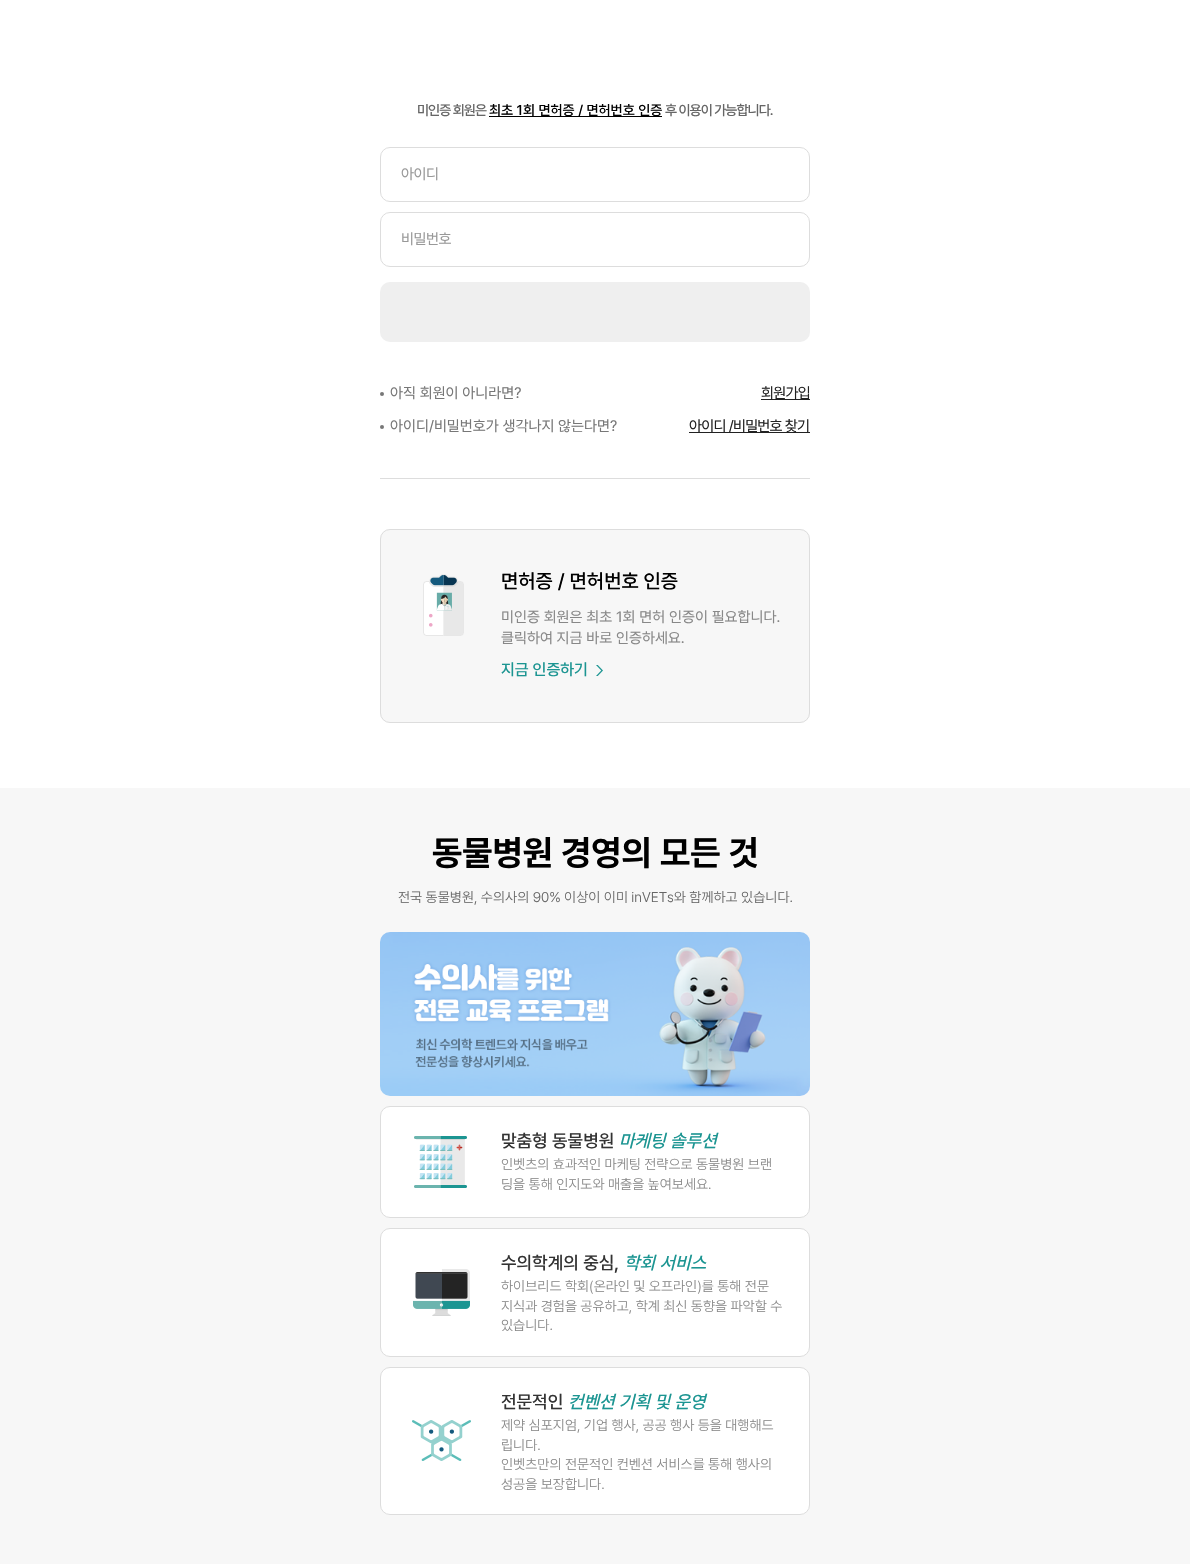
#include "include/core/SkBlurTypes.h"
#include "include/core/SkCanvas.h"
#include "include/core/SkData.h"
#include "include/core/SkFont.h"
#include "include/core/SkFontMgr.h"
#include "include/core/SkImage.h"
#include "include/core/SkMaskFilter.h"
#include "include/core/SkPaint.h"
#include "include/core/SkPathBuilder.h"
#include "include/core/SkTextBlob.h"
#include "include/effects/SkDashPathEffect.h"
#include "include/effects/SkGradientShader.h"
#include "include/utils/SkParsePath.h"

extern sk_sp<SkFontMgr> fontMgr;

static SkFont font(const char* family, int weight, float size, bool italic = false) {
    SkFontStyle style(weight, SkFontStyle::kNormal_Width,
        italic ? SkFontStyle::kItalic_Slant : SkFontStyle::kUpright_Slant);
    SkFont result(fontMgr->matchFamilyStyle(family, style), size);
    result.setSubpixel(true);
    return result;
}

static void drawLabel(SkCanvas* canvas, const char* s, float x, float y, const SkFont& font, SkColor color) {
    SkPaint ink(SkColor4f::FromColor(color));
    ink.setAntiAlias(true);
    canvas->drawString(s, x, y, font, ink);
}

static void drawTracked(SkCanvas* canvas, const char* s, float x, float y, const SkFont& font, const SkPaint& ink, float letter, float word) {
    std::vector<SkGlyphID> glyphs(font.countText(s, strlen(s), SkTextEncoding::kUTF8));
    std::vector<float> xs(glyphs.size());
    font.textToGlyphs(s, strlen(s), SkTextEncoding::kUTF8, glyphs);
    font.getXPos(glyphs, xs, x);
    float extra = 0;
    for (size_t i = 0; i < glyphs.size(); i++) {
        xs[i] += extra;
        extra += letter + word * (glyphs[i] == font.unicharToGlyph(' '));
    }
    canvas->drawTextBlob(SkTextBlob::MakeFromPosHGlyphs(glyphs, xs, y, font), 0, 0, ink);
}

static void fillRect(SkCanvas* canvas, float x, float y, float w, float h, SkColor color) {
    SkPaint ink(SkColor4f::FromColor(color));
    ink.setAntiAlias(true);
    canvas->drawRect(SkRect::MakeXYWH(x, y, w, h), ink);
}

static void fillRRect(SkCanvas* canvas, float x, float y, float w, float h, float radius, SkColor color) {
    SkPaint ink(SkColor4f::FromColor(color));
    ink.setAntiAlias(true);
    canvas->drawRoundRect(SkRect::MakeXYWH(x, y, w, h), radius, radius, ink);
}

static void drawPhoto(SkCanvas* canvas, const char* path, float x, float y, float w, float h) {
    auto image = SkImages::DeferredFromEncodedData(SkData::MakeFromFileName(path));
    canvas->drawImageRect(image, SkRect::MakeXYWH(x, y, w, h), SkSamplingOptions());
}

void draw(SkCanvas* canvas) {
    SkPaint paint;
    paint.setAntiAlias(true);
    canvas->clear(0xFFF7F7F7);
    fillRect(canvas, 0, 0, 1190, 788, 0xFFFFFFFF);
    SkFont font1 = font("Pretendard", 500, 14);
    paint.setColor(0xFF666666);
    drawTracked(canvas, "미인증 회원은", 417, 115, font1, paint, -1, 0);
    fillRect(canvas, 489, 116, 173, 1, 0xFF000000);
    drawLabel(canvas, "최초 1회 면허증 / 면허번호 인증", 489, 115, font1, 0xFF000000);
    drawTracked(canvas, "후 이용이 가능합니다.", 665, 115, font1, paint, -1, 0);
    paint.setStroke(true);
    paint.setStrokeWidth(1);
    paint.setColor(0xFFDDDDDD);
    canvas->drawRoundRect(SkRect::MakeXYWH(380.5f, 147.5f, 429, 54), 9.5f, 9.5f, paint);
    SkFont font2 = font("Pretendard", 400, 15);
    paint.setStroke(false);
    paint.setColor(0xFF999999);
    drawTracked(canvas, "아이디", 401, 179, font2, paint, -0.5f, 0);
    paint.setStroke(true);
    paint.setColor(0xFFDDDDDD);
    canvas->drawRoundRect(SkRect::MakeXYWH(380.5f, 212.5f, 429, 54), 9.5f, 9.5f, paint);
    paint.setStroke(false);
    paint.setColor(0xFF999999);
    drawTracked(canvas, "비밀번호", 401, 244, font2, paint, -0.5f, 0);
    fillRRect(canvas, 380, 282, 430, 60, 10, 0xFFEFEFEF);
    paint.setColor(0xFF777777);
    canvas->drawCircle(382, 394, 2, paint);
    drawLabel(canvas, "아직 회원이 아니라면?", 390, 398, font2, 0xFF777777);
    fillRect(canvas, 761, 399, 49, 1, 0xFF222222);
    paint.setColor(0xFF222222);
    drawTracked(canvas, "회원가입", 761, 398, font2, paint, -0.75f, 0);
    paint.setColor(0xFF777777);
    canvas->drawCircle(382, 427, 2, paint);
    drawLabel(canvas, "아이디/비밀번호가 생각나지 않는다면?", 390, 431, font2, 0xFF777777);
    fillRect(canvas, 689, 432, 121, 1, 0xFF222222);
    paint.setColor(0xFF222222);
    drawTracked(canvas, "아이디 /비밀번호 찾기", 689, 431, font2, paint, -0.75f, 0);
    fillRect(canvas, 380, 478, 430, 1, 0xFFDDDDDD);
    fillRRect(canvas, 380, 529, 430, 194, 10, 0xFFF7F7F7);
    drawPhoto(canvas, "assets/img1.png", 423, 574, 41, 62);
    paint.setStroke(true);
    paint.setColor(0xFFDDDDDD);
    canvas->drawRoundRect(SkRect::MakeXYWH(380.5f, 529.5f, 429, 193), 9.5f, 9.5f, paint);
    SkFont font3 = font("Pretendard", 500, 20);
    drawLabel(canvas, "면허증 / 면허번호 인증", 501, 588, font3, 0xFF000000);
    drawLabel(canvas, "미인증 회원은 최초 1회 면허 인증이 필요합니다.", 501, 622, font2, 0xFF888888);
    drawLabel(canvas, "클릭하여 지금 바로 인증하세요.", 501, 643, font2, 0xFF888888);
    drawPhoto(canvas, "assets/img2.png", 596, 665, 7, 11);
    SkFont font4 = font("Pretendard", 500, 16);
    drawLabel(canvas, "지금 인증하기", 501, 675, font4, 0xFF1C9592);
    SkFont font5 = font("Pretendard", 700, 35);
    drawLabel(canvas, "동물병원 경영의 모든 것", 432, 865, font5, 0xFF000000);
    SkFont font6 = font("Pretendard", 300, 14);
    drawLabel(canvas, "전국 동물병원, 수의사의 90% 이상이 이미 inVETs와 함께하고 있습니다.", 398, 902, font6, 0xFF666666);
    drawPhoto(canvas, "assets/img3.png", 380, 932, 430, 164);
    paint.setStroke(false);
    paint.setColor(0xFFFFFFFF);
    canvas->drawRoundRect(SkRect::MakeXYWH(380.5f, 1106.5f, 429, 111), 9.5f, 9.5f, paint);
    paint.setStroke(true);
    paint.setColor(0xFFDDDDDD);
    canvas->drawRoundRect(SkRect::MakeXYWH(380.5f, 1106.5f, 429, 111), 9.5f, 9.5f, paint);
    drawPhoto(canvas, "assets/img4.png", 414, 1136, 53, 52);
    SkFont font7 = font("Pretendard", 500, 18);
    drawLabel(canvas, "맞춤형 동물병원", 501, 1147, font7, 0xFF333333);
    SkFont font8 = font("Pretendard", 500, 18, true);
    drawLabel(canvas, "마케팅 솔루션", 619, 1147, font8, 0xFF1C9592);
    drawLabel(canvas, "인벳츠의 효과적인 마케팅 전략으로 동물병원 브랜", 501, 1169, font6, 0xFF888888);
    drawLabel(canvas, "딩을 통해 인지도와 매출을 높여보세요.", 501, 1189, font6, 0xFF888888);
    paint.setStroke(false);
    paint.setColor(0xFFFFFFFF);
    canvas->drawRoundRect(SkRect::MakeXYWH(380.5f, 1228.5f, 429, 128), 9.5f, 9.5f, paint);
    paint.setStroke(true);
    paint.setColor(0xFFDDDDDD);
    canvas->drawRoundRect(SkRect::MakeXYWH(380.5f, 1228.5f, 429, 128), 9.5f, 9.5f, paint);
    drawPhoto(canvas, "assets/img5.png", 413, 1269, 57, 47);
    drawLabel(canvas, "수의학계의 중심,", 501, 1269, font7, 0xFF333333);
    drawLabel(canvas, "학회 서비스", 624, 1269, font8, 0xFF1C9592);
    drawLabel(canvas, "하이브리드 학회(온라인 및 오프라인)를 통해 전문", 501, 1291, font6, 0xFF888888);
    drawLabel(canvas, "지식과 경험을 공유하고, 학계 최신 동향을 파악할 수", 501, 1311, font6, 0xFF888888);
    drawLabel(canvas, "있습니다.", 501, 1330, font6, 0xFF888888);
    paint.setStroke(false);
    paint.setColor(0xFFFFFFFF);
    canvas->drawRoundRect(SkRect::MakeXYWH(380.5f, 1367.5f, 429, 147), 9.5f, 9.5f, paint);
    paint.setStroke(true);
    paint.setColor(0xFFDDDDDD);
    canvas->drawRoundRect(SkRect::MakeXYWH(380.5f, 1367.5f, 429, 147), 9.5f, 9.5f, paint);
    drawPhoto(canvas, "assets/img6.png", 412, 1420, 59, 41);
    drawLabel(canvas, "전문적인", 501, 1408, font7, 0xFF333333);
    drawLabel(canvas, "컨벤션 기획 및 운영", 568, 1408, font8, 0xFF1C9592);
    drawLabel(canvas, "제약 심포지엄, 기업 행사, 공공 행사 등을 대행해드", 501, 1430, font6, 0xFF888888);
    drawLabel(canvas, "립니다.", 501, 1450, font6, 0xFF888888);
    drawLabel(canvas, "인벳츠만의 전문적인 컨벤션 서비스를 통해 행사의", 501, 1469, font6, 0xFF888888);
    drawLabel(canvas, "성공을 보장합니다.", 501, 1489, font6, 0xFF888888);
}
